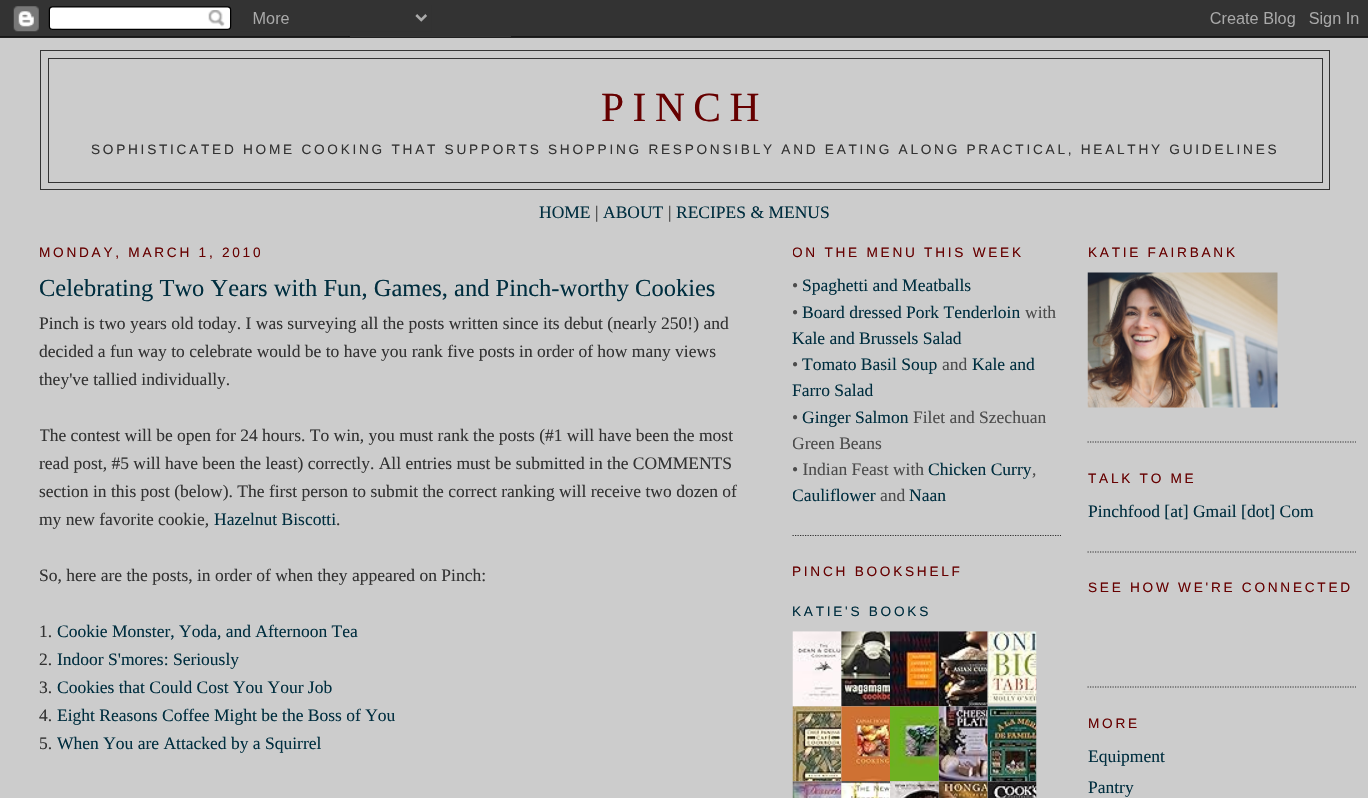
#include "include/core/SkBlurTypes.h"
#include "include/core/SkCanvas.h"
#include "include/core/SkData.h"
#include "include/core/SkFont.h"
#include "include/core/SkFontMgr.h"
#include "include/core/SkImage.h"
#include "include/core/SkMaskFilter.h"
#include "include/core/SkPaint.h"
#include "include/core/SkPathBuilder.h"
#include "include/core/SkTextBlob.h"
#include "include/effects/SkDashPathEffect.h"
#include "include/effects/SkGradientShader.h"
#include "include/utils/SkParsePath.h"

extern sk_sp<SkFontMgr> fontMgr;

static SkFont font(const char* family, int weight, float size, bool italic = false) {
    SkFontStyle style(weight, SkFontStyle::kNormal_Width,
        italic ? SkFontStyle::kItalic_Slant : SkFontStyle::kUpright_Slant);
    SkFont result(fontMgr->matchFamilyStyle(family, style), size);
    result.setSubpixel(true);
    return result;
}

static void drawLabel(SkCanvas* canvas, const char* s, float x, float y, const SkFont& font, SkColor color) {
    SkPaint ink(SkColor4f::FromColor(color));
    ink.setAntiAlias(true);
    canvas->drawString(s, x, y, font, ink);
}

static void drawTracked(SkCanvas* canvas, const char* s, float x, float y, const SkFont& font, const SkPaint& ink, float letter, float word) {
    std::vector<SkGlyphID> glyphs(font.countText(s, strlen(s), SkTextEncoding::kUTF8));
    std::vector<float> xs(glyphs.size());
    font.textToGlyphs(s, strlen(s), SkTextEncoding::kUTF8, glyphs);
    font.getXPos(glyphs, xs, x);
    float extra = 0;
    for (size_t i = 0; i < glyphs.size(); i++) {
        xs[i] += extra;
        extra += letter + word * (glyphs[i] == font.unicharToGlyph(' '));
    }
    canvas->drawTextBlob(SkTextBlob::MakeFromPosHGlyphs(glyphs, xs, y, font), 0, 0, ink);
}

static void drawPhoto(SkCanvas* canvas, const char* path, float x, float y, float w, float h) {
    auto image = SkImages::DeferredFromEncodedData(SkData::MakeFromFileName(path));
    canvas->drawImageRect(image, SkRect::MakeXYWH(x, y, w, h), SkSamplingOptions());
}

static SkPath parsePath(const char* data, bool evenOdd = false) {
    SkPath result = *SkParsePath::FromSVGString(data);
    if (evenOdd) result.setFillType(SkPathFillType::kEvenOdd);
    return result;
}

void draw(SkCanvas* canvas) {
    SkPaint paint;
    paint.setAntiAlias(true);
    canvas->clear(0xFFCCCCCC);
    drawPhoto(canvas, "assets/img1.png", 0, 0, 1368, 38);
    paint.setStroke(true);
    paint.setStrokeWidth(1);
    paint.setColor(0xFF333333);
    canvas->drawRect(SkRect::MakeXYWH(40.5f, 50.5f, 1289, 139), paint);
    canvas->drawRect(SkRect::MakeXYWH(48.5f, 58.5f, 1274, 124), paint);
    SkFont font1 = font("Liberation Serif", 400, 41.5f);
    paint.setStroke(false);
    paint.setColor(0xFF660000);
    drawTracked(canvas, "PINCH", 601, 121, font1, paint, 8.5f, 0);
    SkFont font2 = font("Liberation Sans", 400, 13.65f);
    paint.setColor(0xFF333333);
    drawTracked(canvas, "SOPHISTICATED HOME COOKING THAT SUPPORTS SHOPPING RESPONSIBLY AND EATING ALONG PRACTICAL, HEALTHY GUIDELINES", 91, 154, font2, paint, 2.73f, 0);
    SkFont font3 = font("Liberation Serif", 400, 17.5f);
    drawLabel(canvas, "HOME", 539, 218, font3, 0xFF002E3F);
    drawLabel(canvas, "|", 595, 218, font3, 0xFF333333);
    drawLabel(canvas, "ABOUT", 603, 218, font3, 0xFF002E3F);
    drawLabel(canvas, "|", 668, 218, font3, 0xFF333333);
    drawLabel(canvas, "RECIPES & MENUS", 676, 218, font3, 0xFF002E3F);
    paint.setColor(0xFF660000);
    drawTracked(canvas, "MONDAY, MARCH 1, 2010", 39, 257, font2, paint, 2.73f, 0);
    SkFont font4 = font("Liberation Serif", 400, 24.5f);
    drawLabel(canvas, "Celebrating Two Years with Fun, Games, and Pinch-worthy Cookies", 39, 296, font4, 0xFF002E3F);
    drawLabel(canvas, "Pinch is two years old today. I was surveying all the posts written since its debut (nearly 250!) and", 39, 329, font3, 0xFF333333);
    drawLabel(canvas, "decided a fun way to celebrate would be to have you rank five posts in order of how many views", 39, 357, font3, 0xFF333333);
    drawLabel(canvas, "they've tallied individually.", 39, 385, font3, 0xFF333333);
    canvas->save();
    canvas->clipRect(SkRect::MakeXYWH(40, 223, 699, 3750));
    drawLabel(canvas, "The contest will be open for 24 hours. To win, you must rank the posts (#1 will have been the most", 39, 441, font3, 0xFF333333);
    canvas->restore();
    drawLabel(canvas, "read post, #5 will have been the least) correctly. All entries must be submitted in the COMMENTS", 39, 469, font3, 0xFF333333);
    drawLabel(canvas, "section in this post (below). The first person to submit the correct ranking will receive two dozen of", 39, 497, font3, 0xFF333333);
    drawLabel(canvas, "my new favorite cookie,", 39, 525, font3, 0xFF333333);
    drawLabel(canvas, "Hazelnut Biscotti", 214, 525, font3, 0xFF002E3F);
    drawLabel(canvas, ".", 336, 525, font3, 0xFF333333);
    drawLabel(canvas, "So, here are the posts, in order of when they appeared on Pinch:", 39, 581, font3, 0xFF333333);
    drawLabel(canvas, "1.", 39, 637, font3, 0xFF333333);
    drawLabel(canvas, "Cookie Monster, Yoda, and Afternoon Tea", 57, 637, font3, 0xFF002E3F);
    drawLabel(canvas, "2.", 39, 665, font3, 0xFF333333);
    drawLabel(canvas, "Indoor S'mores: Seriously", 57, 665, font3, 0xFF002E3F);
    drawLabel(canvas, "3.", 39, 693, font3, 0xFF333333);
    drawLabel(canvas, "Cookies that Could Cost You Your Job", 57, 693, font3, 0xFF002E3F);
    drawLabel(canvas, "4.", 39, 721, font3, 0xFF333333);
    drawLabel(canvas, "Eight Reasons Coffee Might be the Boss of You", 57, 721, font3, 0xFF002E3F);
    drawLabel(canvas, "5.", 39, 749, font3, 0xFF333333);
    drawLabel(canvas, "When You are Attacked by a Squirrel", 57, 749, font3, 0xFF002E3F);
    paint.setStroke(true);
    paint.setStrokeWidth(1.2f);
    paint.setColor(0xFF333333);
    paint.setPathEffect(SkDashPathEffect::Make({{1.25f, 1.25f}}, 0));
    canvas->drawPath(parsePath("M792.5 535.5H1061"), paint);
    paint.setPathEffect(nullptr);
    canvas->save();
    canvas->clipRect(SkRect::MakeXYWH(793, 223, 268, 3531));
    paint.setStroke(false);
    paint.setColor(0xFF660000);
    drawTracked(canvas, "ON THE MENU THIS WEEK", 792, 257, font2, paint, 2.73f, 0);
    canvas->restore();
    drawLabel(canvas, "•", 792, 291, font3, 0xFF4C4C4C);
    drawLabel(canvas, "Spaghetti and Meatballs", 802, 291, font3, 0xFF002E3F);
    drawLabel(canvas, "•", 792, 318, font3, 0xFF4C4C4C);
    drawLabel(canvas, "Board dressed Pork Tenderloin", 802, 318, font3, 0xFF002E3F);
    drawLabel(canvas, "with", 1025, 318, font3, 0xFF4C4C4C);
    drawLabel(canvas, "Kale and Brussels Salad", 792, 344, font3, 0xFF002E3F);
    drawLabel(canvas, "•", 792, 370, font3, 0xFF4C4C4C);
    drawLabel(canvas, "Tomato Basil Soup", 802, 370, font3, 0xFF002E3F);
    drawLabel(canvas, "and", 942, 370, font3, 0xFF4C4C4C);
    drawLabel(canvas, "Kale and", 972, 370, font3, 0xFF002E3F);
    drawLabel(canvas, "Farro Salad", 792, 396, font3, 0xFF002E3F);
    drawLabel(canvas, "•", 792, 423, font3, 0xFF4C4C4C);
    drawLabel(canvas, "Ginger Salmon", 802, 423, font3, 0xFF002E3F);
    drawLabel(canvas, "Filet and Szechuan", 913, 423, font3, 0xFF4C4C4C);
    canvas->save();
    canvas->clipRect(SkRect::MakeXYWH(793, 223, 268, 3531));
    drawLabel(canvas, "Green Beans", 792, 449, font3, 0xFF4C4C4C);
    canvas->restore();
    drawLabel(canvas, "• Indian Feast with", 792, 475, font3, 0xFF4C4C4C);
    drawLabel(canvas, "Chicken Curry", 928, 475, font3, 0xFF002E3F);
    drawLabel(canvas, ",", 1032, 475, font3, 0xFF4C4C4C);
    canvas->save();
    canvas->clipRect(SkRect::MakeXYWH(793, 223, 268, 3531));
    drawLabel(canvas, "Cauliflower", 792, 501, font3, 0xFF002E3F);
    canvas->restore();
    drawLabel(canvas, "and", 880, 501, font3, 0xFF4C4C4C);
    drawLabel(canvas, "Naan", 909, 501, font3, 0xFF002E3F);
    drawTracked(canvas, "PINCH BOOKSHELF", 792, 576, font2, paint, 2.73f, 0);
    paint.setColor(0xFF002E3F);
    drawTracked(canvas, "KATIE'S BOOKS", 792, 616, font2, paint, 2.73f, 0);
    drawPhoto(canvas, "assets/img2.png", 792, 631, 50, 76);
    drawPhoto(canvas, "assets/img3.png", 841, 631, 49, 76);
    drawPhoto(canvas, "assets/img4.png", 890, 631, 49, 76);
    drawPhoto(canvas, "assets/img5.png", 938, 631, 50, 76);
    drawPhoto(canvas, "assets/img6.png", 987, 631, 50, 73);
    drawPhoto(canvas, "assets/img7.png", 792, 706, 50, 76);
    drawPhoto(canvas, "assets/img8.png", 841, 706, 49, 76);
    drawPhoto(canvas, "assets/img9.png", 890, 706, 49, 76);
    drawPhoto(canvas, "assets/img10.png", 938, 706, 50, 76);
    drawPhoto(canvas, "assets/img11.png", 987, 706, 50, 76);
    drawPhoto(canvas, "assets/img12.png", 792, 781, 50, 17);
    drawPhoto(canvas, "assets/img13.png", 841, 781, 49, 17);
    drawPhoto(canvas, "assets/img14.png", 890, 781, 49, 17);
    drawPhoto(canvas, "assets/img15.png", 938, 781, 50, 17);
    drawPhoto(canvas, "assets/img16.png", 987, 781, 50, 17);
    paint.setStroke(true);
    paint.setColor(0xFF333333);
    paint.setPathEffect(SkDashPathEffect::Make({{1.25f, 1.25f}}, 0));
    canvas->drawPath(parsePath("M1087.5 442H1356"), paint);
    paint.setPathEffect(nullptr);
    paint.setStroke(false);
    paint.setColor(0xFF660000);
    drawTracked(canvas, "KATIE FAIRBANK", 1088, 257, font2, paint, 2.73f, 0);
    drawPhoto(canvas, "assets/img17.png", 1087, 272, 191, 136);
    paint.setStroke(true);
    paint.setColor(0xFF333333);
    paint.setPathEffect(SkDashPathEffect::Make({{1.25f, 1.25f}}, 0));
    canvas->drawPath(parsePath("M1087.5 552H1356"), paint);
    paint.setPathEffect(nullptr);
    paint.setStroke(false);
    paint.setColor(0xFF660000);
    drawTracked(canvas, "TALK TO ME", 1088, 483, font2, paint, 2.73f, 0);
    drawLabel(canvas, "Pinchfood [at] Gmail [dot] Com", 1088, 517, font3, 0xFF002E3F);
    paint.setStroke(true);
    paint.setColor(0xFF333333);
    paint.setPathEffect(SkDashPathEffect::Make({{1.25f, 1.25f}}, 0));
    canvas->drawPath(parsePath("M1087.5 687H1356"), paint);
    paint.setPathEffect(nullptr);
    paint.setStroke(false);
    paint.setColor(0xFF660000);
    drawTracked(canvas, "SEE HOW WE'RE CONNECTED", 1088, 592, font2, paint, 2.73f, 0);
    drawTracked(canvas, "MORE", 1088, 728, font2, paint, 2.73f, 0);
    drawLabel(canvas, "Equipment", 1088, 762, font3, 0xFF002E3F);
    drawLabel(canvas, "Pantry", 1088, 793, font3, 0xFF002E3F);
}
